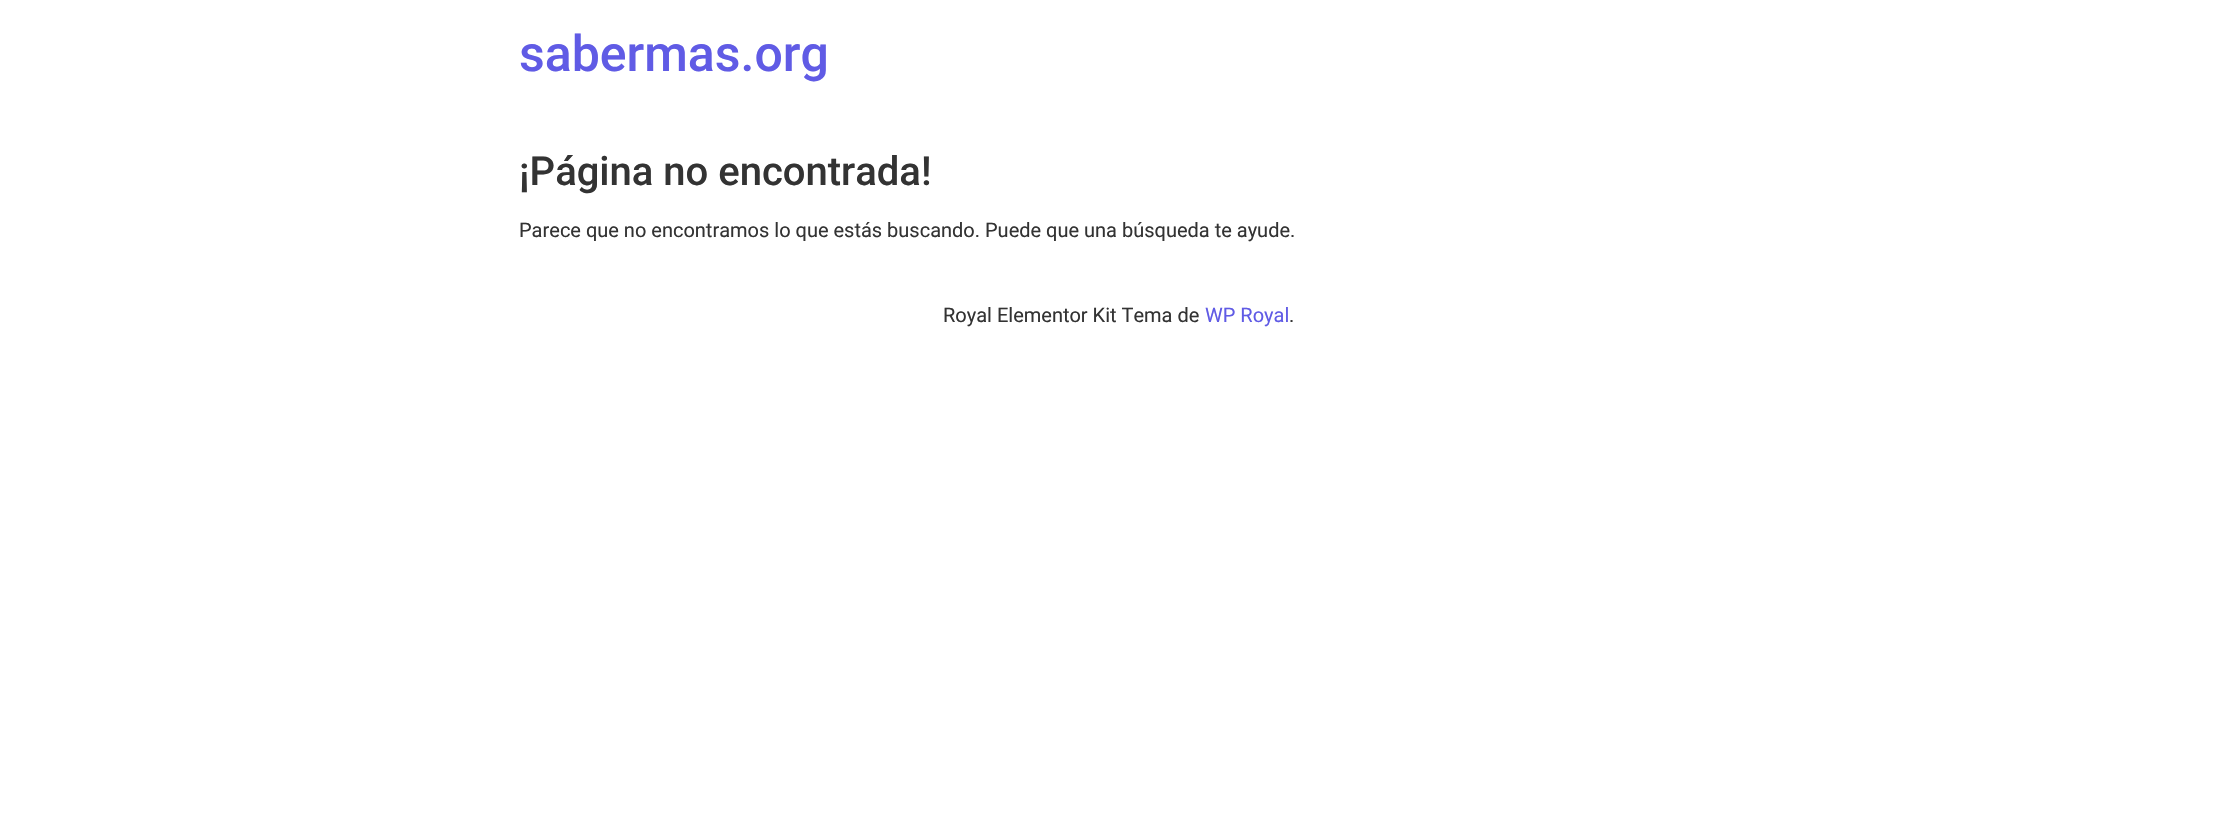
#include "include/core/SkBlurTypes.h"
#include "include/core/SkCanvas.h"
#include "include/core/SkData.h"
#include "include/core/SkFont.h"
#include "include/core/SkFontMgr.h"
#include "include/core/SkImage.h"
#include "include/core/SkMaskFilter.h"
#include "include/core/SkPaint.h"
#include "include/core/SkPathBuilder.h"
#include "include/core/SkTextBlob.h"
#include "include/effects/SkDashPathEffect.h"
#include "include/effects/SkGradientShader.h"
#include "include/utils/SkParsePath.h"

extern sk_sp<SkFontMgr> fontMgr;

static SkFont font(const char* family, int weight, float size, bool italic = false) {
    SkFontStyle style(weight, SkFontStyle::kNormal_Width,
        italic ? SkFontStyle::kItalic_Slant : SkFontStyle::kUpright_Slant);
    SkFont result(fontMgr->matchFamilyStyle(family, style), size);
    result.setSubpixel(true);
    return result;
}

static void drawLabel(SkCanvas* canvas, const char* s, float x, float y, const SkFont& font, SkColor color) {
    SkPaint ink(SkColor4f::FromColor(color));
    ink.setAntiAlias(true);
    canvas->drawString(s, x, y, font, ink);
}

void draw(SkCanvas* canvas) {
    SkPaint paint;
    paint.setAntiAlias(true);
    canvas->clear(0xFFFFFFFF);
    SkFont font1 = font("Roboto", 500, 50);
    drawLabel(canvas, "sabermas.org", 519, 71, font1, 0xFF605BE5);
    SkFont font2 = font("Roboto", 500, 40);
    drawLabel(canvas, "¡Página no encontrada!", 519, 185, font2, 0xFF333333);
    SkFont font3 = font("Roboto", 400, 20);
    drawLabel(canvas, "Parece que no encontramos lo que estás buscando. Puede que una búsqueda te ayude.", 519, 237, font3, 0xFF333333);
    drawLabel(canvas, "Royal Elementor Kit Tema de", 943, 322, font3, 0xFF333333);
    drawLabel(canvas, "WP Royal", 1205, 322, font3, 0xFF605BE5);
    drawLabel(canvas, ".", 1289, 322, font3, 0xFF333333);
}
